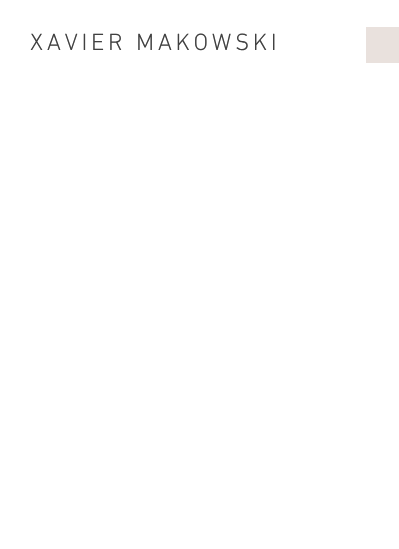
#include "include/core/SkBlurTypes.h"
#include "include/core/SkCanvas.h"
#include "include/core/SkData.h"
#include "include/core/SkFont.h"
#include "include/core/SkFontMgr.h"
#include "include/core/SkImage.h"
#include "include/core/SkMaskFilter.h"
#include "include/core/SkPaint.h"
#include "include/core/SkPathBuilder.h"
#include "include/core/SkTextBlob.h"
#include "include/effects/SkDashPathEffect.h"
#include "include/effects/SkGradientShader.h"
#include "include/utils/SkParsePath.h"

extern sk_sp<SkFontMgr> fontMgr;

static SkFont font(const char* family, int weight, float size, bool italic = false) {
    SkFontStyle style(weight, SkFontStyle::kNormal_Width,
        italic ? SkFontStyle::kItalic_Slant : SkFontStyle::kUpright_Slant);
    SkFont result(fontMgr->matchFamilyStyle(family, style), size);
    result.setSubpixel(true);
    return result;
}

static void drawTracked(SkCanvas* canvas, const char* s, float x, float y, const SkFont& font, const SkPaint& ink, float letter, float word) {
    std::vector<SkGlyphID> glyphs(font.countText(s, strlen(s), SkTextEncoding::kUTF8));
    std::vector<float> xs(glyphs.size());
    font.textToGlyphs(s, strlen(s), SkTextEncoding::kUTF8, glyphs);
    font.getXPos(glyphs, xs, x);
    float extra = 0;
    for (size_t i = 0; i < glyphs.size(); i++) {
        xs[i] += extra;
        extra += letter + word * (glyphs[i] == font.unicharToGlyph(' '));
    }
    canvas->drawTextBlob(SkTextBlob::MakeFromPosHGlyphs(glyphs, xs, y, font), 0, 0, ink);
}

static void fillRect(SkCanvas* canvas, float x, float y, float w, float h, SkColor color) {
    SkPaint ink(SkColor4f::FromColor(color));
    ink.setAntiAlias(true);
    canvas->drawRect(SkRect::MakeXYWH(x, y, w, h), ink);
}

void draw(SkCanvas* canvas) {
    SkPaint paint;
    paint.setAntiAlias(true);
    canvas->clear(0xFFFFFFFF);
    SkFont font1 = font("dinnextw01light", 300, 24);
    paint.setColor(0xFF414141);
    drawTracked(canvas, "XAVIER MAKOWSKI", 30, 50, font1, paint, 3.6f, 0);
    fillRect(canvas, 366, 27, 33, 36, 0xFFE9E1DD);
}
